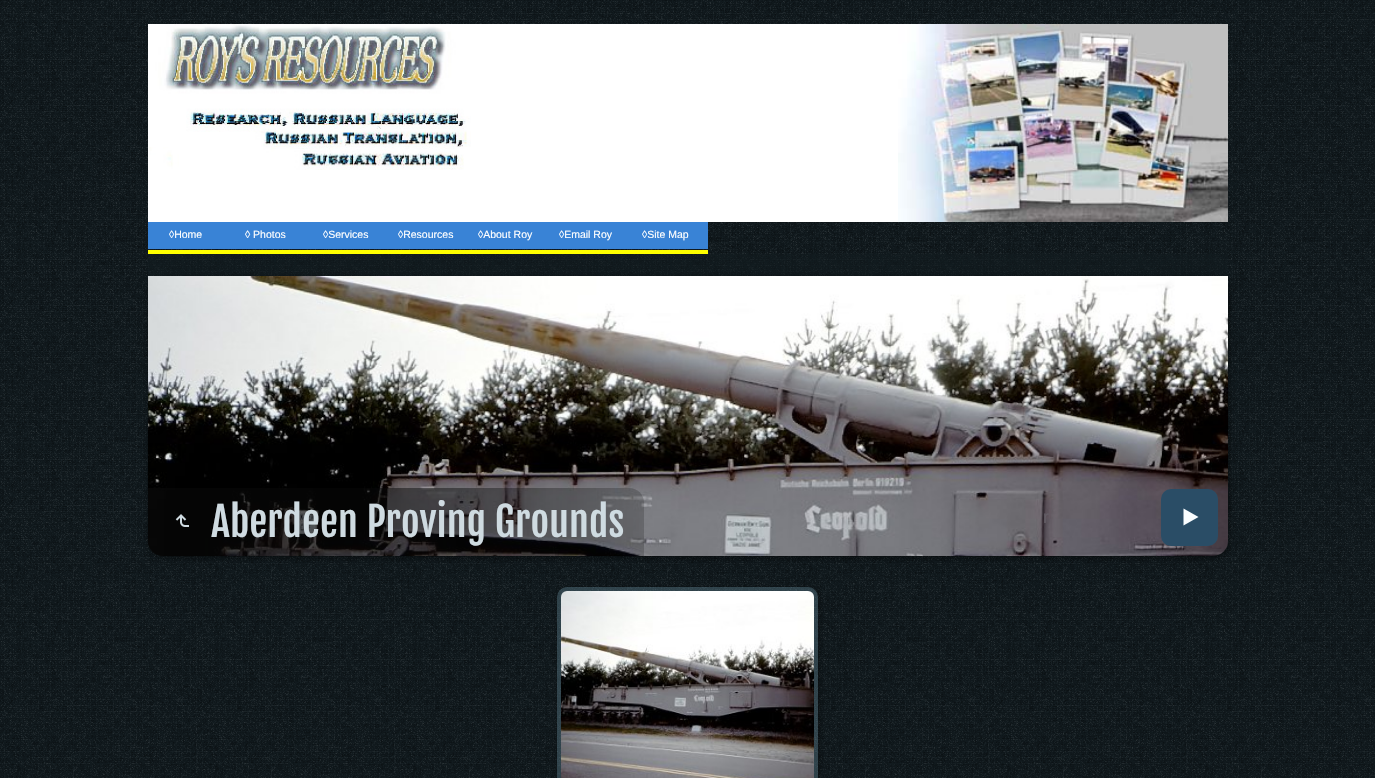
#include "include/core/SkBlurTypes.h"
#include "include/core/SkCanvas.h"
#include "include/core/SkData.h"
#include "include/core/SkFont.h"
#include "include/core/SkFontMgr.h"
#include "include/core/SkImage.h"
#include "include/core/SkMaskFilter.h"
#include "include/core/SkPaint.h"
#include "include/core/SkPathBuilder.h"
#include "include/core/SkTextBlob.h"
#include "include/effects/SkDashPathEffect.h"
#include "include/effects/SkGradientShader.h"
#include "include/utils/SkParsePath.h"

extern sk_sp<SkFontMgr> fontMgr;

static SkFont font(const char* family, int weight, float size, bool italic = false) {
    SkFontStyle style(weight, SkFontStyle::kNormal_Width,
        italic ? SkFontStyle::kItalic_Slant : SkFontStyle::kUpright_Slant);
    SkFont result(fontMgr->matchFamilyStyle(family, style), size);
    result.setSubpixel(true);
    return result;
}

static void drawLabel(SkCanvas* canvas, const char* s, float x, float y, const SkFont& font, SkColor color) {
    SkPaint ink(SkColor4f::FromColor(color));
    ink.setAntiAlias(true);
    canvas->drawString(s, x, y, font, ink);
}

static void fillRect(SkCanvas* canvas, float x, float y, float w, float h, SkColor color) {
    SkPaint ink(SkColor4f::FromColor(color));
    ink.setAntiAlias(true);
    canvas->drawRect(SkRect::MakeXYWH(x, y, w, h), ink);
}

static void fillRRect(SkCanvas* canvas, float x, float y, float w, float h, float radius, SkColor color) {
    SkPaint ink(SkColor4f::FromColor(color));
    ink.setAntiAlias(true);
    canvas->drawRoundRect(SkRect::MakeXYWH(x, y, w, h), radius, radius, ink);
}

static void drawPhoto(SkCanvas* canvas, const char* path, float x, float y, float w, float h) {
    auto image = SkImages::DeferredFromEncodedData(SkData::MakeFromFileName(path));
    canvas->drawImageRect(image, SkRect::MakeXYWH(x, y, w, h), SkSamplingOptions());
}

static SkPath parsePath(const char* data, bool evenOdd = false) {
    SkPath result = *SkParsePath::FromSVGString(data);
    if (evenOdd) result.setFillType(SkPathFillType::kEvenOdd);
    return result;
}

void draw(SkCanvas* canvas) {
    SkPaint paint;
    paint.setAntiAlias(true);
    canvas->clear(0xFF111A1E);
    drawPhoto(canvas, "assets/img1.png", 0, 0, 1375, 778);
    fillRect(canvas, 148, 24, 750, 198, 0xFFFFFFFF);
    drawPhoto(canvas, "assets/img2.png", 149, 24, 322, 146);
    drawPhoto(canvas, "assets/img3.png", 898, 24, 330, 198);
    fillRect(canvas, 148, 250, 560, 4, 0xFFFFFF00);
    fillRect(canvas, 148, 222, 560, 27, 0xFF3983D6);
    SkFont font1 = font("Liberation Sans", 400, 10.5f);
    drawLabel(canvas, "◊Home", 169, 238, font1, 0xFFFFFFFF);
    drawLabel(canvas, "◊ Photos", 245, 238, font1, 0xFFFFFFFF);
    drawLabel(canvas, "◊Services", 323, 238, font1, 0xFFFFFFFF);
    drawLabel(canvas, "◊Resources", 398, 238, font1, 0xFFFFFFFF);
    drawLabel(canvas, "◊About Roy", 478, 238, font1, 0xFFFFFFFF);
    drawLabel(canvas, "◊Email Roy", 559, 238, font1, 0xFFFFFFFF);
    drawLabel(canvas, "◊Site Map", 642, 238, font1, 0xFFFFFFFF);
    fillRect(canvas, 148, 254, 1080, 22, 0x87111A1E);
    paint.setColor(0x82000000);
    paint.setMaskFilter(SkMaskFilter::MakeBlur(kNormal_SkBlurStyle, 3));
    canvas->drawRoundRect(SkRect::MakeXYWH(149, 278, 1080, 280), 15, 15, paint);
    paint.setMaskFilter(nullptr);
    paint.setColor(0x87111A1E);
    canvas->drawPath(parsePath("M148 276H1228V541C1228 549.5 1221.5 556 1213 556H163C154.5 556 148 549.5 148 541Z"), paint);
    drawPhoto(canvas, "assets/img4.png", 148, 276, 1080, 280);
    {
        const SkColor colors[] = {0xB3080808, 0x73080808, 0x33080808};
        const float stops[] = {0, 0.6f, 1};
        const SkPoint ends[] = {{148, 522}, {644, 522}};
        paint.setShader(SkGradientShader::MakeLinear(ends, colors, stops, 3, SkTileMode::kClamp));
        paint.setAlpha(255);
    }
    canvas->drawPath(parsePath("M148 488H629C637.5 488 644 494.5 644 503V556H163C154.5 556 148 549.5 148 541Z"), paint);
    drawPhoto(canvas, "assets/img5.png", 175, 514, 14, 13);
    SkFont font2 = font("Fjalla One", 400, 40);
    drawLabel(canvas, "Aberdeen Proving Grounds", 211, 537, font2, 0xFFCFDBE1);
    SkFont font3 = font("Liberation Sans", 400, 18);
    drawLabel(canvas, "r", 1043, 523, font3, 0xFF635D65);
    fillRRect(canvas, 1161, 489, 57, 57, 10, 0xFF2A4D66);
    paint.setShader(nullptr);
    paint.setColor(0xFFF9FDFF);
    canvas->drawPath(parsePath("M1183.5 508.5L1198.5 517L1183.5 525.5Z"), paint);
    canvas->save();
    canvas->clipPath(parsePath("M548 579H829V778H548ZM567 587H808C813.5 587 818 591.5 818 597V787C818 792.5 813.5 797 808 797H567C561.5 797 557 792.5 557 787V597C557 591.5 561.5 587 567 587Z", true), true);
    paint.setColor(0x82000000);
    paint.setMaskFilter(SkMaskFilter::MakeBlur(kNormal_SkBlurStyle, 3));
    canvas->drawRoundRect(SkRect::MakeXYWH(558, 589, 261, 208), 10, 10, paint);
    paint.setMaskFilter(nullptr);
    canvas->restore();
    fillRRect(canvas, 557, 587, 261, 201, 10, 0x665F8392);
    drawPhoto(canvas, "assets/img6.png", 561, 591, 253, 187);
}
